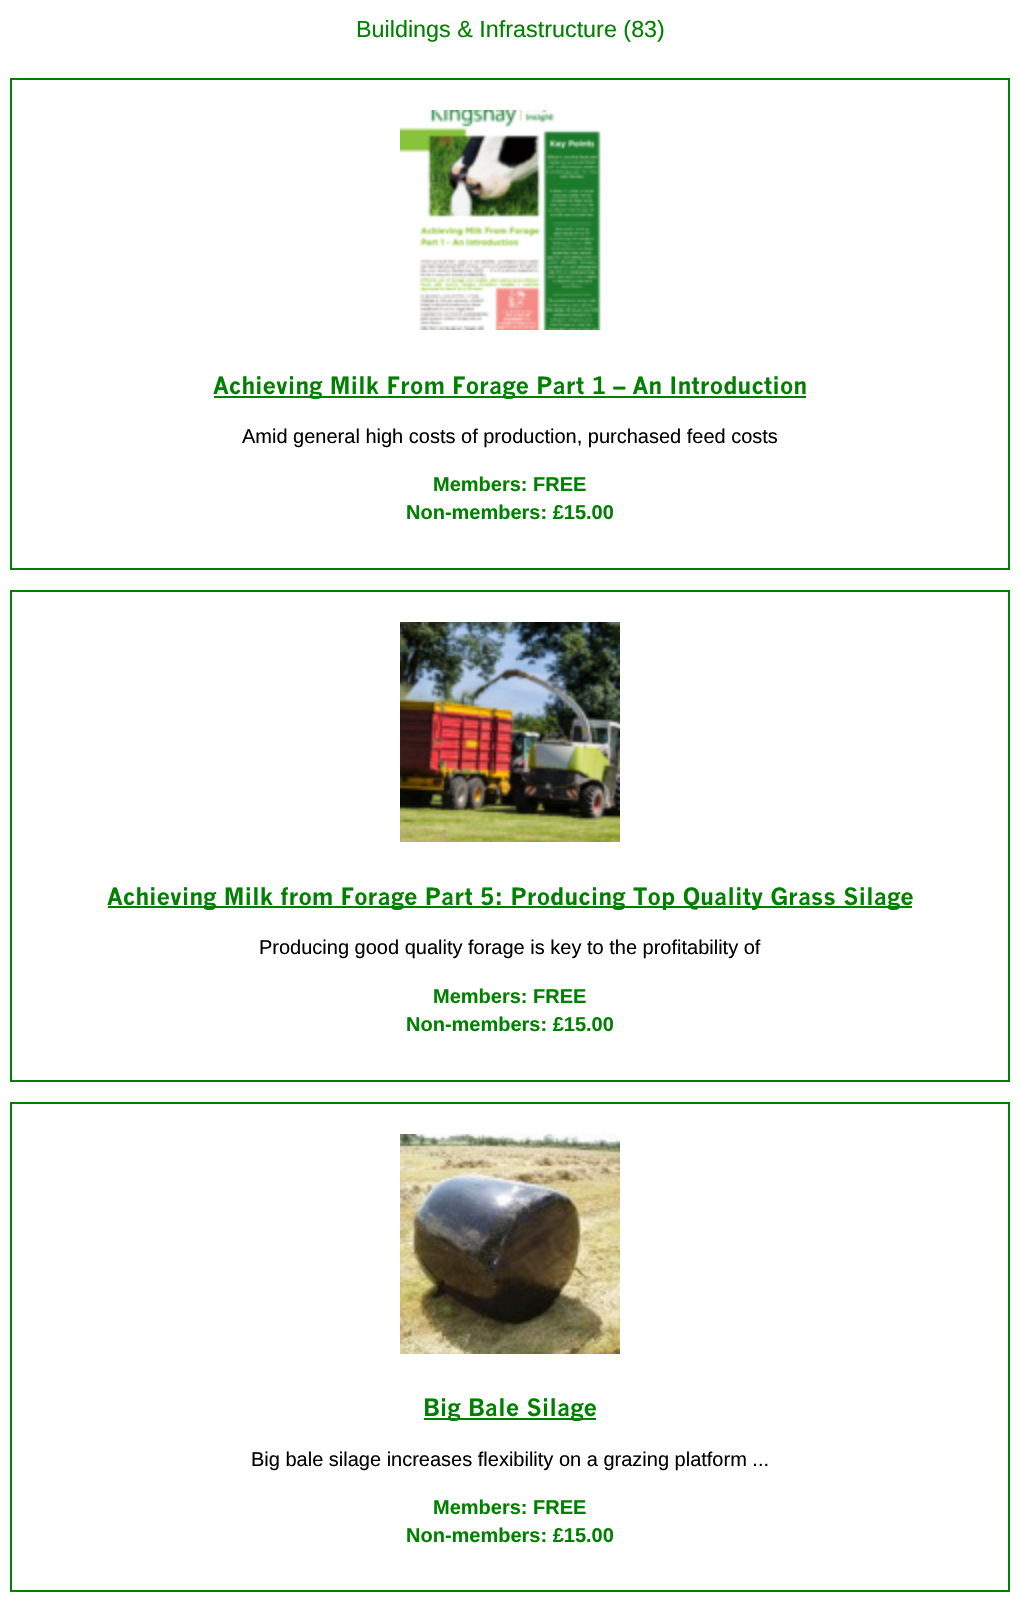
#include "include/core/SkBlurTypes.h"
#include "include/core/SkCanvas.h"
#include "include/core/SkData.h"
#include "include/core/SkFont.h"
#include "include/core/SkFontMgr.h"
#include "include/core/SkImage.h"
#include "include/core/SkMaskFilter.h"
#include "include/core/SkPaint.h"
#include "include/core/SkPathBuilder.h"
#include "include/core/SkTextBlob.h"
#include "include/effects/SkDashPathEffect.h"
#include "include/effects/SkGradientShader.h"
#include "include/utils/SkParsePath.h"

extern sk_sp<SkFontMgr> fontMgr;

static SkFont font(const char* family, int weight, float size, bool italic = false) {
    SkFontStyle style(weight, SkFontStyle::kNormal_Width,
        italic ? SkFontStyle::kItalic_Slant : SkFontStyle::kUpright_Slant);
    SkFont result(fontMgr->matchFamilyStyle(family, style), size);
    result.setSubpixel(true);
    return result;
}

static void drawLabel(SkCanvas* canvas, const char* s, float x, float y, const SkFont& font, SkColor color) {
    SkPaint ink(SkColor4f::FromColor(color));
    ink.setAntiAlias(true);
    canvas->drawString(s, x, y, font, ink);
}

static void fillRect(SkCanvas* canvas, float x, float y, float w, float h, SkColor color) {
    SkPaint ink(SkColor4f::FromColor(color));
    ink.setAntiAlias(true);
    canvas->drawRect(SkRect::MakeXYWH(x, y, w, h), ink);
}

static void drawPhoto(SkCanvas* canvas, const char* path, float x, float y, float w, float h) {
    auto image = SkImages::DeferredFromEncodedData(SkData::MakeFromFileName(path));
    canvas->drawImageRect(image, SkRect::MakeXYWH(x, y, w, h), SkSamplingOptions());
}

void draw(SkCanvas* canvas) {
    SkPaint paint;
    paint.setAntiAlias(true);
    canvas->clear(0xFFFFFFFF);
    SkFont font1 = font("Liberation Sans", 400, 23.35f);
    drawLabel(canvas, "Buildings & Infrastructure (83)", 356, 37, font1, 0xFF008000);
    paint.setStroke(true);
    paint.setStrokeWidth(2);
    paint.setColor(0xFF008000);
    canvas->drawRect(SkRect::MakeXYWH(11, 79, 998, 490), paint);
    drawPhoto(canvas, "assets/img1.png", 400, 110, 201, 220);
    fillRect(canvas, 214, 396, 592, 2, 0xFF008000);
    SkFont font2 = font("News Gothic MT", 700, 23.35f);
    drawLabel(canvas, "Achieving Milk From Forage Part 1 – An Introduction", 213, 394, font2, 0xFF008000);
    SkFont font3 = font("Liberation Sans", 400, 20);
    drawLabel(canvas, "Amid general high costs of production, purchased feed costs", 242, 443, font3, 0xFF000000);
    SkFont font4 = font("Liberation Sans", 700, 20);
    drawLabel(canvas, "Members: FREE", 433, 491, font4, 0xFF008000);
    drawLabel(canvas, "Non-members: £15.00", 406, 519, font4, 0xFF008000);
    canvas->drawRect(SkRect::MakeXYWH(11, 591, 998, 490), paint);
    drawPhoto(canvas, "assets/img2.png", 400, 622, 220, 220);
    fillRect(canvas, 108, 906, 804, 2, 0xFF008000);
    drawLabel(canvas, "Achieving Milk from Forage Part 5: Producing Top Quality Grass Silage", 107, 905, font2, 0xFF008000);
    drawLabel(canvas, "Producing good quality forage is key to the profitability of", 259, 954, font3, 0xFF000000);
    drawLabel(canvas, "Members: FREE", 433, 1003, font4, 0xFF008000);
    drawLabel(canvas, "Non-members: £15.00", 406, 1031, font4, 0xFF008000);
    canvas->drawRect(SkRect::MakeXYWH(11, 1103, 998, 488), paint);
    drawPhoto(canvas, "assets/img3.png", 400, 1134, 220, 220);
    fillRect(canvas, 424, 1418, 172, 2, 0xFF008000);
    drawLabel(canvas, "Big Bale Silage", 423, 1416, font2, 0xFF008000);
    drawLabel(canvas, "Big bale silage increases flexibility on a grazing platform ...", 251, 1466, font3, 0xFF000000);
    drawLabel(canvas, "Members: FREE", 433, 1514, font4, 0xFF008000);
    drawLabel(canvas, "Non-members: £15.00", 406, 1542, font4, 0xFF008000);
}
